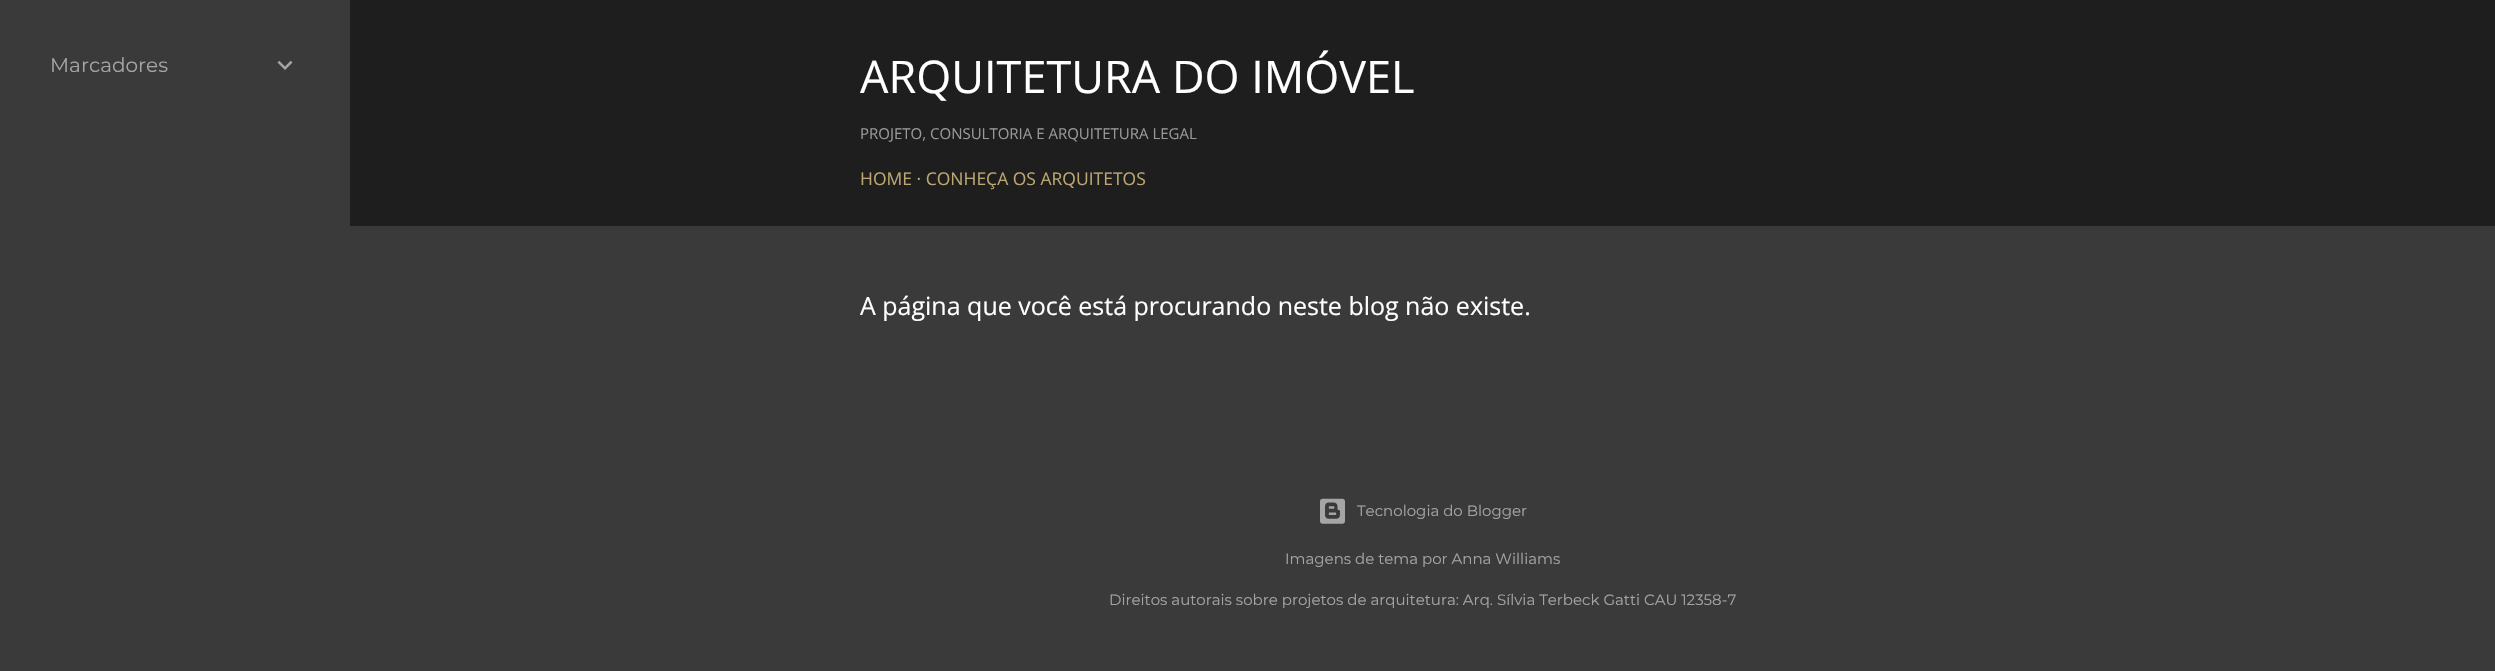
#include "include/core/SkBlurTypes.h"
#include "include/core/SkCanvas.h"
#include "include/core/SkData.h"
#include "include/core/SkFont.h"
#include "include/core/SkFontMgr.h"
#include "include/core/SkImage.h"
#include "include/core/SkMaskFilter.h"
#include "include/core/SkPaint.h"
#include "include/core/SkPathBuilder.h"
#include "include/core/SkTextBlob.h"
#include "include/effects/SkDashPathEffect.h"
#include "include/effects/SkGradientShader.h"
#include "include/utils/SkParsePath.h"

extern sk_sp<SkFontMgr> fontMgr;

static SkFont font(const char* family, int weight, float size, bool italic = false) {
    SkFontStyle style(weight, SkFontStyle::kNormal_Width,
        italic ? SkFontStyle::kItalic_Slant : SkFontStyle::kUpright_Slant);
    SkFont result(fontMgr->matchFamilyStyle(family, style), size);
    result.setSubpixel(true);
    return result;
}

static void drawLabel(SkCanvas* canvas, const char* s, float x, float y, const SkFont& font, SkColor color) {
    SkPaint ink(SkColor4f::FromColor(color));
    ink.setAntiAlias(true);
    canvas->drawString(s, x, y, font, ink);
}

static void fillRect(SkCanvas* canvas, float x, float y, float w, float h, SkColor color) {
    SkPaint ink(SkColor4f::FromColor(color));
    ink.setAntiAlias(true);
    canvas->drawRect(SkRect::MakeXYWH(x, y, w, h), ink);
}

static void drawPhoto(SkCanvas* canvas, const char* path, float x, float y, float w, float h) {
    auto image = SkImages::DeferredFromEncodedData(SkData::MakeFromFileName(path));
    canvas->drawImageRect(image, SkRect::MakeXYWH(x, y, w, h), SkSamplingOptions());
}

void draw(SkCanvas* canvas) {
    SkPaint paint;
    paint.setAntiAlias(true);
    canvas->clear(0xFF3A3A3A);
    SkFont font1 = font("Montserrat", 100, 20);
    drawLabel(canvas, "Marcadores", 50, 72, font1, 0xFFA4A4A4);
    drawPhoto(canvas, "assets/img1.png", 277, 60, 16, 10);
    fillRect(canvas, 350, 0, 2145, 226, 0xFF1E1E1E);
    SkFont font2 = font("Open Sans", 400, 45);
    drawLabel(canvas, "ARQUITETURA DO IMÓVEL", 860, 93, font2, 0xFFFFFFFF);
    SkFont font3 = font("Open Sans", 400, 15);
    drawLabel(canvas, "PROJETO, CONSULTORIA E ARQUITETURA LEGAL", 860, 139, font3, 0xFF989898);
    SkFont font4 = font("Open Sans", 400, 17.5f);
    drawLabel(canvas, "HOME · CONHEÇA OS ARQUITETOS", 860, 185, font4, 0xFFBCA772);
    SkFont font5 = font("Open Sans", 400, 25);
    drawLabel(canvas, "A página que você está procurando neste blog não existe.", 860, 315, font5, 0xFFFFFFFF);
    drawPhoto(canvas, "assets/img2.png", 1320, 498, 25, 26);
    SkFont font6 = font("Montserrat", 100, 15);
    drawLabel(canvas, "Tecnologia do Blogger", 1357, 516, font6, 0xFFA4A4A4);
    drawLabel(canvas, "Imagens de tema por Anna Williams", 1285, 564, font6, 0xFFA4A4A4);
    drawLabel(canvas, "Direitos autorais sobre projetos de arquitetura: Arq. Sílvia Terbeck Gatti CAU 12358-7", 1109, 605, font6, 0xFFA4A4A4);
}
